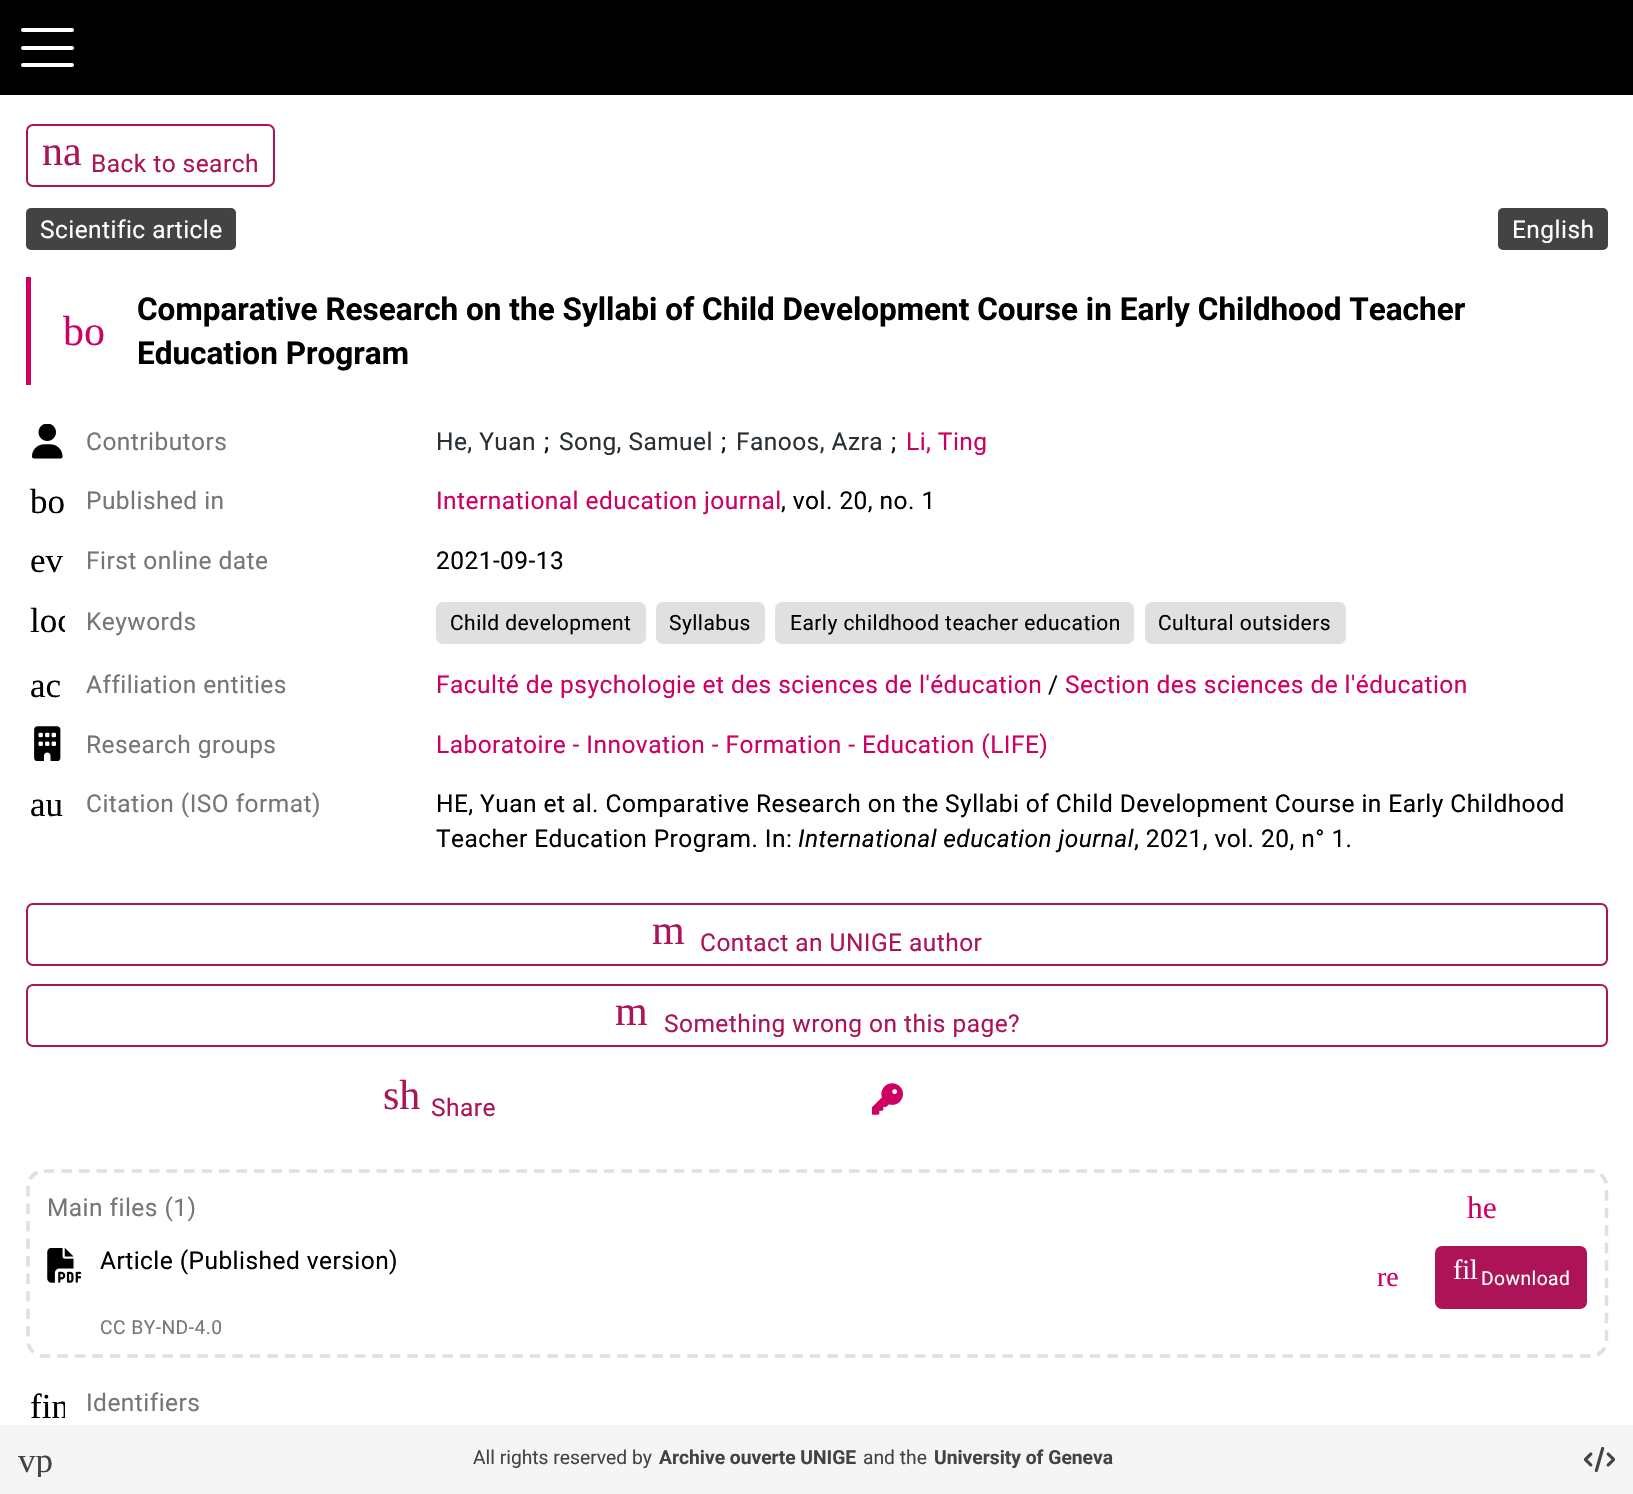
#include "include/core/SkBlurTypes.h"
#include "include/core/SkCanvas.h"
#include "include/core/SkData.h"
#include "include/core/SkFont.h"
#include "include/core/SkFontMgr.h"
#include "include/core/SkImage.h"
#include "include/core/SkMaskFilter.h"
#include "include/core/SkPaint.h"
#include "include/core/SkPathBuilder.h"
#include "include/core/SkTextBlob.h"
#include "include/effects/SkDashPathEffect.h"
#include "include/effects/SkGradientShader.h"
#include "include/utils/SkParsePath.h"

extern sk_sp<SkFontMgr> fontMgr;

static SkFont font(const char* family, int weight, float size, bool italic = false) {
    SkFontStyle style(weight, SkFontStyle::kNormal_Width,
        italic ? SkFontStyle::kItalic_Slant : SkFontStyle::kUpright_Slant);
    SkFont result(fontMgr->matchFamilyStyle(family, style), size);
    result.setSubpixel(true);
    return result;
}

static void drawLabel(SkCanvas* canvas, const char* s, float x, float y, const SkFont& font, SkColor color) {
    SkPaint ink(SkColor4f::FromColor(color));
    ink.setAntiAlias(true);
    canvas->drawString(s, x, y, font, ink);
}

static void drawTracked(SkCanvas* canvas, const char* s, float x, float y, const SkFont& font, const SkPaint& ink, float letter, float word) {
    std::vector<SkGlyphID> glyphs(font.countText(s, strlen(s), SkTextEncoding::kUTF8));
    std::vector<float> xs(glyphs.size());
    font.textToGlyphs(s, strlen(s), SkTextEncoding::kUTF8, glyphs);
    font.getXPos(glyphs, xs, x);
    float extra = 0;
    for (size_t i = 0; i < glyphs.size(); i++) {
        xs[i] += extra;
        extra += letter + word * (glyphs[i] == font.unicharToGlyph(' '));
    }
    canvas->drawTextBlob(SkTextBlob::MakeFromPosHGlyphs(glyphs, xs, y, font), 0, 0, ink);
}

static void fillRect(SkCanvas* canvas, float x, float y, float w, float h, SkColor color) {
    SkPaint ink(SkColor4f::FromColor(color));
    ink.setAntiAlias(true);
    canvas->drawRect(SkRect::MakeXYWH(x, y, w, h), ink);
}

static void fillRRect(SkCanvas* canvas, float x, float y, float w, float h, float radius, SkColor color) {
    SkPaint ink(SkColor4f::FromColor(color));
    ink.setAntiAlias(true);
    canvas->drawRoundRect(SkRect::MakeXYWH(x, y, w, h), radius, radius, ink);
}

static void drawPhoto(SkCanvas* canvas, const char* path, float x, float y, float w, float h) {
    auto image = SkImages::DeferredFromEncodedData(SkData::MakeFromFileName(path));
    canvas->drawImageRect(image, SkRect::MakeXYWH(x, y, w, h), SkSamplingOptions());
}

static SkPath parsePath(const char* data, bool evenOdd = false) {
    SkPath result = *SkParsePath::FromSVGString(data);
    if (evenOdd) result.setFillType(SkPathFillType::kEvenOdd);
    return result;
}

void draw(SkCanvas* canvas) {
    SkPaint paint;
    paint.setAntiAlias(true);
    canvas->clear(0xFFFFFFFF);
    fillRect(canvas, 0, 0, 1633, 95, 0xFF000000);
    fillRRect(canvas, 21, 28, 53, 4, 2, 0xFFFFFFFF);
    fillRRect(canvas, 21, 46, 53, 4, 2, 0xFFFFFFFF);
    fillRRect(canvas, 21, 63, 53, 4, 2, 0xFFFFFFFF);
    paint.setStroke(true);
    paint.setStrokeWidth(2);
    paint.setColor(0xFFAD1457);
    canvas->drawRoundRect(SkRect::MakeXYWH(27, 125, 247, 61), 6, 6, paint);
    SkFont font1 = font("Liberation Serif", 400, 42);
    drawLabel(canvas, "na", 42, 165, font1, 0xFFAD1457);
    SkFont font2 = font("Roboto", 400, 24.5f);
    paint.setStroke(false);
    drawTracked(canvas, "Back to search", 91, 172, font2, paint, 0.45f, 0);
    fillRRect(canvas, 26, 208, 210, 42, 5, 0xFF434343);
    paint.setColor(0xFFFFFFFF);
    drawTracked(canvas, "Scientific article", 40, 238, font2, paint, 0.45f, 0);
    fillRRect(canvas, 1498, 208, 110, 42, 5, 0xFF434343);
    drawTracked(canvas, "English", 1512, 238, font2, paint, 0.45f, 0);
    fillRect(canvas, 26, 277, 5, 108, 0xFFCF0063);
    drawLabel(canvas, "bo", 63, 345, font1, 0xFFCF0063);
    SkFont font3 = font("Roboto", 700, 31.5f);
    drawLabel(canvas, "Comparative Research on the Syllabi of Child Development Course in Early Childhood Teacher", 137, 320, font3, 0xFF000000);
    drawLabel(canvas, "Education Program", 137, 364, font3, 0xFF000000);
    drawPhoto(canvas, "assets/img1.png", 31, 424, 32, 35);
    paint.setColor(0xFF767676);
    drawTracked(canvas, "Contributors", 86, 450, font2, paint, 0.45f, 0);
    paint.setColor(0xFF292F33);
    drawTracked(canvas, "He, Yuan", 436, 450, font2, paint, 0.45f, 0);
    paint.setColor(0xFF000000);
    drawTracked(canvas, ";", 544, 450, font2, paint, 0.45f, 0);
    paint.setColor(0xFF292F33);
    drawTracked(canvas, "Song, Samuel", 559, 450, font2, paint, 0.45f, 0);
    paint.setColor(0xFF000000);
    drawTracked(canvas, ";", 721, 450, font2, paint, 0.45f, 0);
    paint.setColor(0xFF292F33);
    drawTracked(canvas, "Fanoos, Azra", 736, 450, font2, paint, 0.45f, 0);
    paint.setColor(0xFF000000);
    drawTracked(canvas, ";", 891, 450, font2, paint, 0.45f, 0);
    paint.setColor(0xFFCF0063);
    drawTracked(canvas, "Li, Ting", 906, 450, font2, paint, 0.45f, 0);
    SkFont font4 = font("Liberation Serif", 400, 35);
    drawLabel(canvas, "bo", 30, 513, font4, 0xFF000000);
    paint.setColor(0xFF767676);
    drawTracked(canvas, "Published in", 86, 509, font2, paint, 0.45f, 0);
    paint.setColor(0xFFCF0063);
    drawTracked(canvas, "International education journal", 436, 509, font2, paint, 0.45f, 0);
    paint.setColor(0xFF000000);
    drawTracked(canvas, ", vol. 20, no. 1", 781, 509, font2, paint, 0.45f, 0);
    drawLabel(canvas, "ev", 30, 572, font4, 0xFF000000);
    paint.setColor(0xFF767676);
    drawTracked(canvas, "First online date", 86, 569, font2, paint, 0.45f, 0);
    paint.setColor(0xFF000000);
    drawTracked(canvas, "2021-09-13", 436, 569, font2, paint, 0.45f, 0);
    canvas->save();
    canvas->clipRect(SkRect::MakeXYWH(30, 602, 35, 35));
    drawLabel(canvas, "loc", 30, 632, font4, 0xFF000000);
    canvas->restore();
    paint.setColor(0xFF767676);
    drawTracked(canvas, "Keywords", 86, 630, font2, paint, 0.45f, 0);
    fillRRect(canvas, 436, 602, 210, 42, 7, 0xFFE0E0E0);
    SkFont font5 = font("Roboto", 400, 21);
    paint.setColor(0xFF000000);
    drawTracked(canvas, "Child development", 450, 630, font5, paint, 0.45f, 0);
    fillRRect(canvas, 656, 602, 109, 42, 7, 0xFFE0E0E0);
    drawTracked(canvas, "Syllabus", 669, 630, font5, paint, 0.45f, 0);
    fillRRect(canvas, 775, 602, 359, 42, 7, 0xFFE0E0E0);
    drawTracked(canvas, "Early childhood teacher education", 790, 630, font5, paint, 0.45f, 0);
    fillRRect(canvas, 1145, 602, 201, 42, 7, 0xFFE0E0E0);
    drawTracked(canvas, "Cultural outsiders", 1158, 630, font5, paint, 0.45f, 0);
    drawLabel(canvas, "ac", 30, 697, font4, 0xFF000000);
    paint.setColor(0xFF767676);
    drawTracked(canvas, "Affiliation entities", 86, 693, font2, paint, 0.45f, 0);
    paint.setColor(0xFFCF0063);
    drawTracked(canvas, "Faculté de psychologie et des sciences de l'éducation", 436, 693, font2, paint, 0.45f, 0);
    paint.setColor(0xFF000000);
    drawTracked(canvas, "/", 1048, 693, font2, paint, 0.45f, 0);
    paint.setColor(0xFFCF0063);
    drawTracked(canvas, "Section des sciences de l'éducation", 1065, 693, font2, paint, 0.45f, 0);
    drawPhoto(canvas, "assets/img2.png", 34, 726, 27, 35);
    paint.setColor(0xFF767676);
    drawTracked(canvas, "Research groups", 86, 753, font2, paint, 0.45f, 0);
    paint.setColor(0xFFCF0063);
    drawTracked(canvas, "Laboratoire - Innovation - Formation - Education (LIFE)", 436, 753, font2, paint, 0.45f, 0);
    drawLabel(canvas, "au", 30, 816, font4, 0xFF000000);
    paint.setColor(0xFF767676);
    drawTracked(canvas, "Citation (ISO format)", 86, 812, font2, paint, 0.45f, 0);
    paint.setColor(0xFF000000);
    drawTracked(canvas, "HE, Yuan et al. Comparative Research on the Syllabi of Child Development Course in Early Childhood", 436, 812, font2, paint, 0.45f, 0);
    drawTracked(canvas, "Teacher Education Program. In:", 436, 847, font2, paint, 0.45f, 0);
    SkFont font6 = font("Roboto", 400, 24.5f, true);
    drawTracked(canvas, "International education journal", 798, 847, font6, paint, 0.45f, 0);
    drawTracked(canvas, ", 2021, vol. 20, n° 1.", 1134, 847, font2, paint, 0.45f, 0);
    paint.setStroke(true);
    paint.setColor(0xFFAD1457);
    canvas->drawRoundRect(SkRect::MakeXYWH(27, 904, 1580, 61), 6, 6, paint);
    drawLabel(canvas, "m", 652, 944, font1, 0xFFAD1457);
    paint.setStroke(false);
    drawTracked(canvas, "Contact an UNIGE author", 700, 951, font2, paint, 0.45f, 0);
    paint.setStroke(true);
    canvas->drawRoundRect(SkRect::MakeXYWH(27, 985, 1580, 61), 6, 6, paint);
    drawLabel(canvas, "m", 615, 1025, font1, 0xFFAD1457);
    paint.setStroke(false);
    drawTracked(canvas, "Something wrong on this page?", 664, 1032, font2, paint, 0.45f, 0);
    drawLabel(canvas, "sh", 383, 1109, font1, 0xFFAD1457);
    drawTracked(canvas, "Share", 431, 1116, font2, paint, 0.45f, 0);
    drawPhoto(canvas, "assets/img3.png", 872, 1083, 31, 32);
    paint.setStroke(true);
    paint.setStrokeWidth(3.5f);
    paint.setColor(0xFFE0E0E0);
    paint.setPathEffect(SkDashPathEffect::Make({{10.5f, 7}}, 0));
    canvas->drawPath(parsePath("M44 1171H1591C1599.5 1171 1606.5 1178 1606.5 1186.5V1340.5C1606.5 1349 1599.5 1356 1591 1356H44C35 1356 28 1349 28 1340.5V1186.5C28 1178 35 1171 44 1171Z"), paint);
    paint.setPathEffect(nullptr);
    paint.setStroke(false);
    paint.setColor(0xFF767676);
    drawTracked(canvas, "Main files (1)", 47, 1216, font2, paint, 0.45f, 0);
    SkFont font7 = font("Liberation Serif", 400, 31.5f);
    drawLabel(canvas, "he", 1467, 1218, font7, 0xFFCF0063);
    drawPhoto(canvas, "assets/img4.png", 47, 1248, 35, 35);
    paint.setColor(0xFF000000);
    drawTracked(canvas, "Article (Published version)", 100, 1269, font2, paint, 0.45f, 0);
    SkFont font8 = font("Roboto", 400, 19.25f);
    paint.setColor(0xFF767676);
    drawTracked(canvas, "CC BY-ND-4.0", 100, 1334, font8, paint, 0.45f, 0);
    SkFont font9 = font("Liberation Serif", 400, 28);
    drawLabel(canvas, "re", 1377, 1286, font9, 0xFFCF0063);
    fillRRect(canvas, 1435, 1246, 152, 63, 7, 0xFFAD1457);
    drawLabel(canvas, "fil", 1453, 1279, font9, 0xFFFFFFFF);
    paint.setColor(0xFFFFFFFF);
    drawTracked(canvas, "Download", 1481, 1285, font8, paint, 0.45f, 0);
    canvas->save();
    canvas->clipRect(SkRect::MakeXYWH(30, 1388, 35, 35));
    drawLabel(canvas, "fin", 30, 1418, font4, 0xFF000000);
    canvas->restore();
    paint.setColor(0xFF767676);
    drawTracked(canvas, "Identifiers", 86, 1411, font2, paint, 0.45f, 0);
    fillRect(canvas, 0, 1425, 1633, 69, 0xFFF5F5F5);
    canvas->save();
    canvas->clipRect(SkRect::MakeXYWH(18, 1442, 35, 35));
    drawLabel(canvas, "vp", 18, 1472, font4, 0xFF434343);
    canvas->restore();
    drawLabel(canvas, "All rights reserved by", 473, 1464, font8, 0xFF434343);
    SkFont font10 = font("Roboto", 700, 19.25f);
    drawLabel(canvas, "Archive ouverte UNIGE", 659, 1464, font10, 0xFF434343);
    drawLabel(canvas, "and the", 863, 1464, font8, 0xFF434343);
    drawLabel(canvas, "University of Geneva", 934, 1464, font10, 0xFF434343);
    drawPhoto(canvas, "assets/img5.png", 1584, 1446, 31, 27);
}
